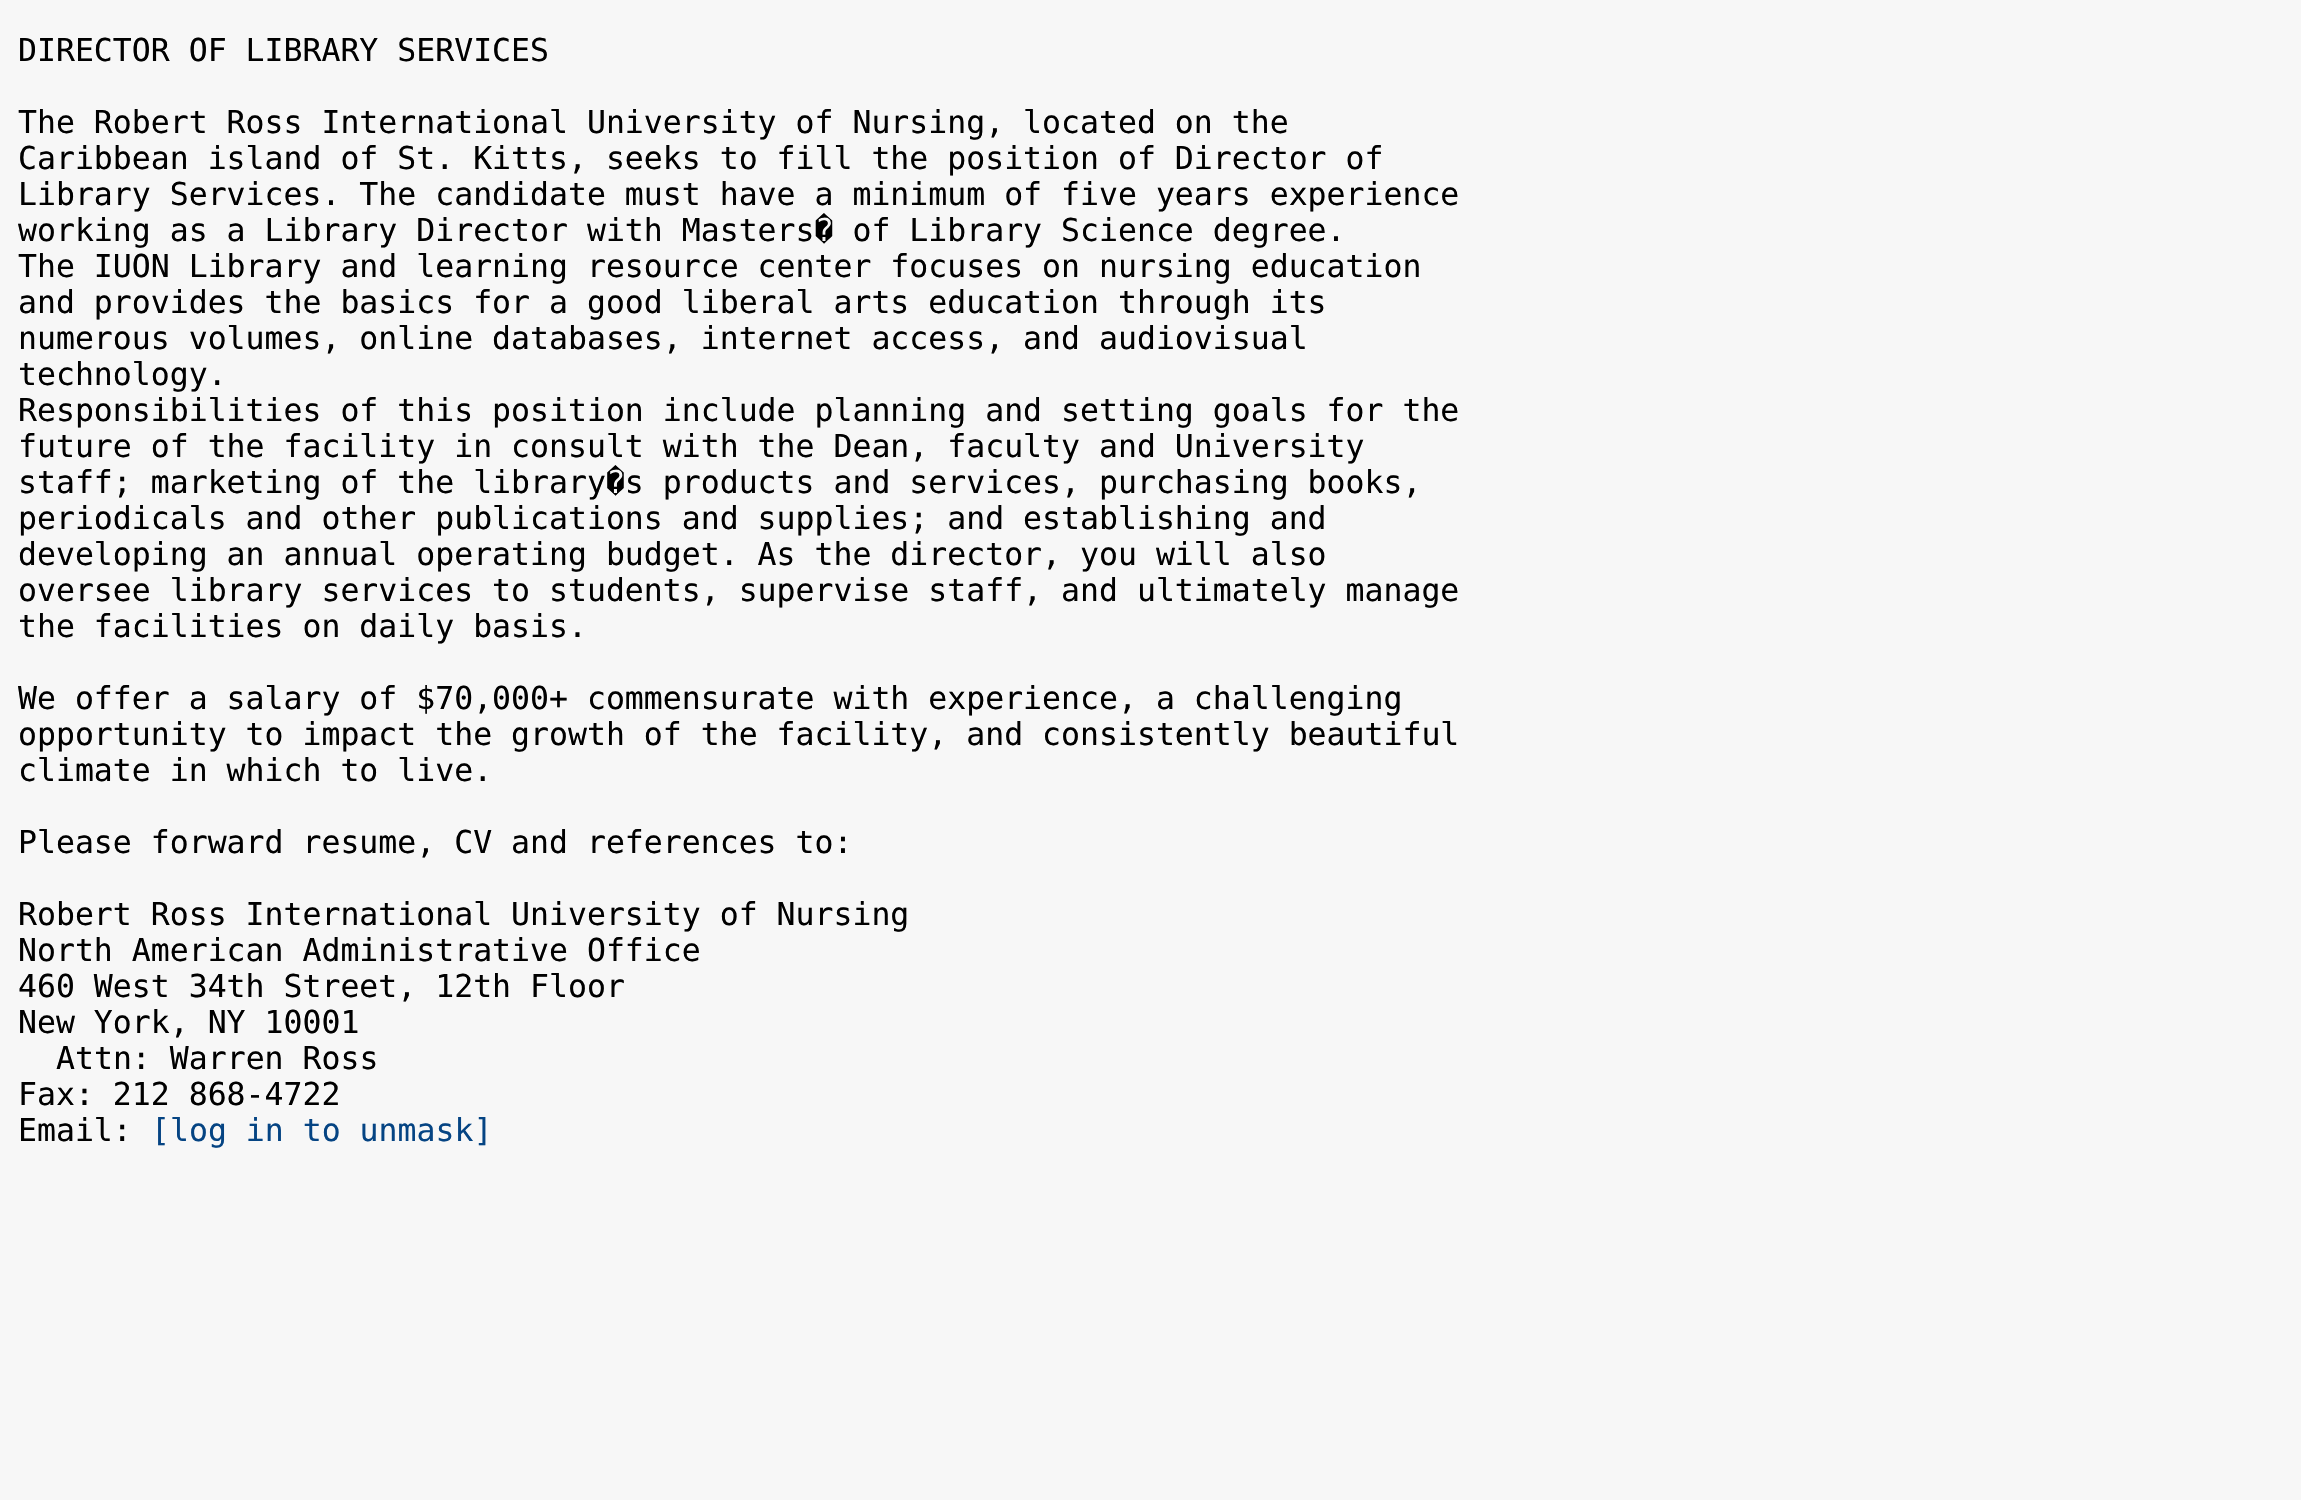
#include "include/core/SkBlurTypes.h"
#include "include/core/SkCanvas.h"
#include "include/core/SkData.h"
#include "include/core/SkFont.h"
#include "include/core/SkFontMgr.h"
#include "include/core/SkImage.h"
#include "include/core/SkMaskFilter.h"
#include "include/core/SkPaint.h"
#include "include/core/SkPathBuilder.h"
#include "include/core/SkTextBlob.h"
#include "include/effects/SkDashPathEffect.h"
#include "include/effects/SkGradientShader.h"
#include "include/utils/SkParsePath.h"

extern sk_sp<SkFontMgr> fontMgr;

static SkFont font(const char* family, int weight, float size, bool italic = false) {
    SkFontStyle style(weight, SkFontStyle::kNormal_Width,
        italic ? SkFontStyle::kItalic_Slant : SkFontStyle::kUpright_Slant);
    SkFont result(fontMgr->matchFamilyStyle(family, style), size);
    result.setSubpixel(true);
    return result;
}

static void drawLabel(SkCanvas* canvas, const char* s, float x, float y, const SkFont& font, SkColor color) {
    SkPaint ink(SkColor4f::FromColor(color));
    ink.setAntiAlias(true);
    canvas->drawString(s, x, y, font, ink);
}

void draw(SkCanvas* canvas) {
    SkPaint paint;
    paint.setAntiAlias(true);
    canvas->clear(0xFFF7F7F7);
    SkFont font1 = font("DejaVu Sans Mono", 400, 31.5f);
    drawLabel(canvas, "DIRECTOR OF LIBRARY SERVICES", 18, 61, font1, 0xFF000000);
    drawLabel(canvas, "The Robert Ross International University of Nursing, located on the", 18, 133, font1, 0xFF000000);
    drawLabel(canvas, "Caribbean island of St. Kitts, seeks to fill the position of Director of", 18, 169, font1, 0xFF000000);
    drawLabel(canvas, "Library Services. The candidate must have a minimum of five years experience", 18, 205, font1, 0xFF000000);
    drawLabel(canvas, "working as a Library Director with Masters� of Library Science degree.", 18, 241, font1, 0xFF000000);
    drawLabel(canvas, "The IUON Library and learning resource center focuses on nursing education", 18, 277, font1, 0xFF000000);
    drawLabel(canvas, "and provides the basics for a good liberal arts education through its", 18, 313, font1, 0xFF000000);
    drawLabel(canvas, "numerous volumes, online databases, internet access, and audiovisual", 18, 349, font1, 0xFF000000);
    drawLabel(canvas, "technology.", 18, 385, font1, 0xFF000000);
    drawLabel(canvas, "Responsibilities of this position include planning and setting goals for the", 18, 421, font1, 0xFF000000);
    drawLabel(canvas, "future of the facility in consult with the Dean, faculty and University", 18, 457, font1, 0xFF000000);
    drawLabel(canvas, "staff; marketing of the library�s products and services, purchasing books,", 18, 493, font1, 0xFF000000);
    drawLabel(canvas, "periodicals and other publications and supplies; and establishing and", 18, 529, font1, 0xFF000000);
    drawLabel(canvas, "developing an annual operating budget. As the director, you will also", 18, 565, font1, 0xFF000000);
    drawLabel(canvas, "oversee library services to students, supervise staff, and ultimately manage", 18, 601, font1, 0xFF000000);
    drawLabel(canvas, "the facilities on daily basis.", 18, 637, font1, 0xFF000000);
    drawLabel(canvas, "We offer a salary of $70,000+ commensurate with experience, a challenging", 18, 709, font1, 0xFF000000);
    drawLabel(canvas, "opportunity to impact the growth of the facility, and consistently beautiful", 18, 745, font1, 0xFF000000);
    drawLabel(canvas, "climate in which to live.", 18, 781, font1, 0xFF000000);
    drawLabel(canvas, "Please forward resume, CV and references to:", 18, 853, font1, 0xFF000000);
    drawLabel(canvas, "Robert Ross International University of Nursing", 18, 925, font1, 0xFF000000);
    drawLabel(canvas, "North American Administrative Office", 18, 961, font1, 0xFF000000);
    drawLabel(canvas, "460 West 34th Street, 12th Floor", 18, 997, font1, 0xFF000000);
    drawLabel(canvas, "New York, NY 10001", 18, 1033, font1, 0xFF000000);
    drawLabel(canvas, "Attn: Warren Ross", 56, 1069, font1, 0xFF000000);
    drawLabel(canvas, "Fax: 212 868-4722", 18, 1105, font1, 0xFF000000);
    drawLabel(canvas, "Email:", 18, 1141, font1, 0xFF000000);
    drawLabel(canvas, "[log in to unmask]", 151, 1141, font1, 0xFF054483);
}
